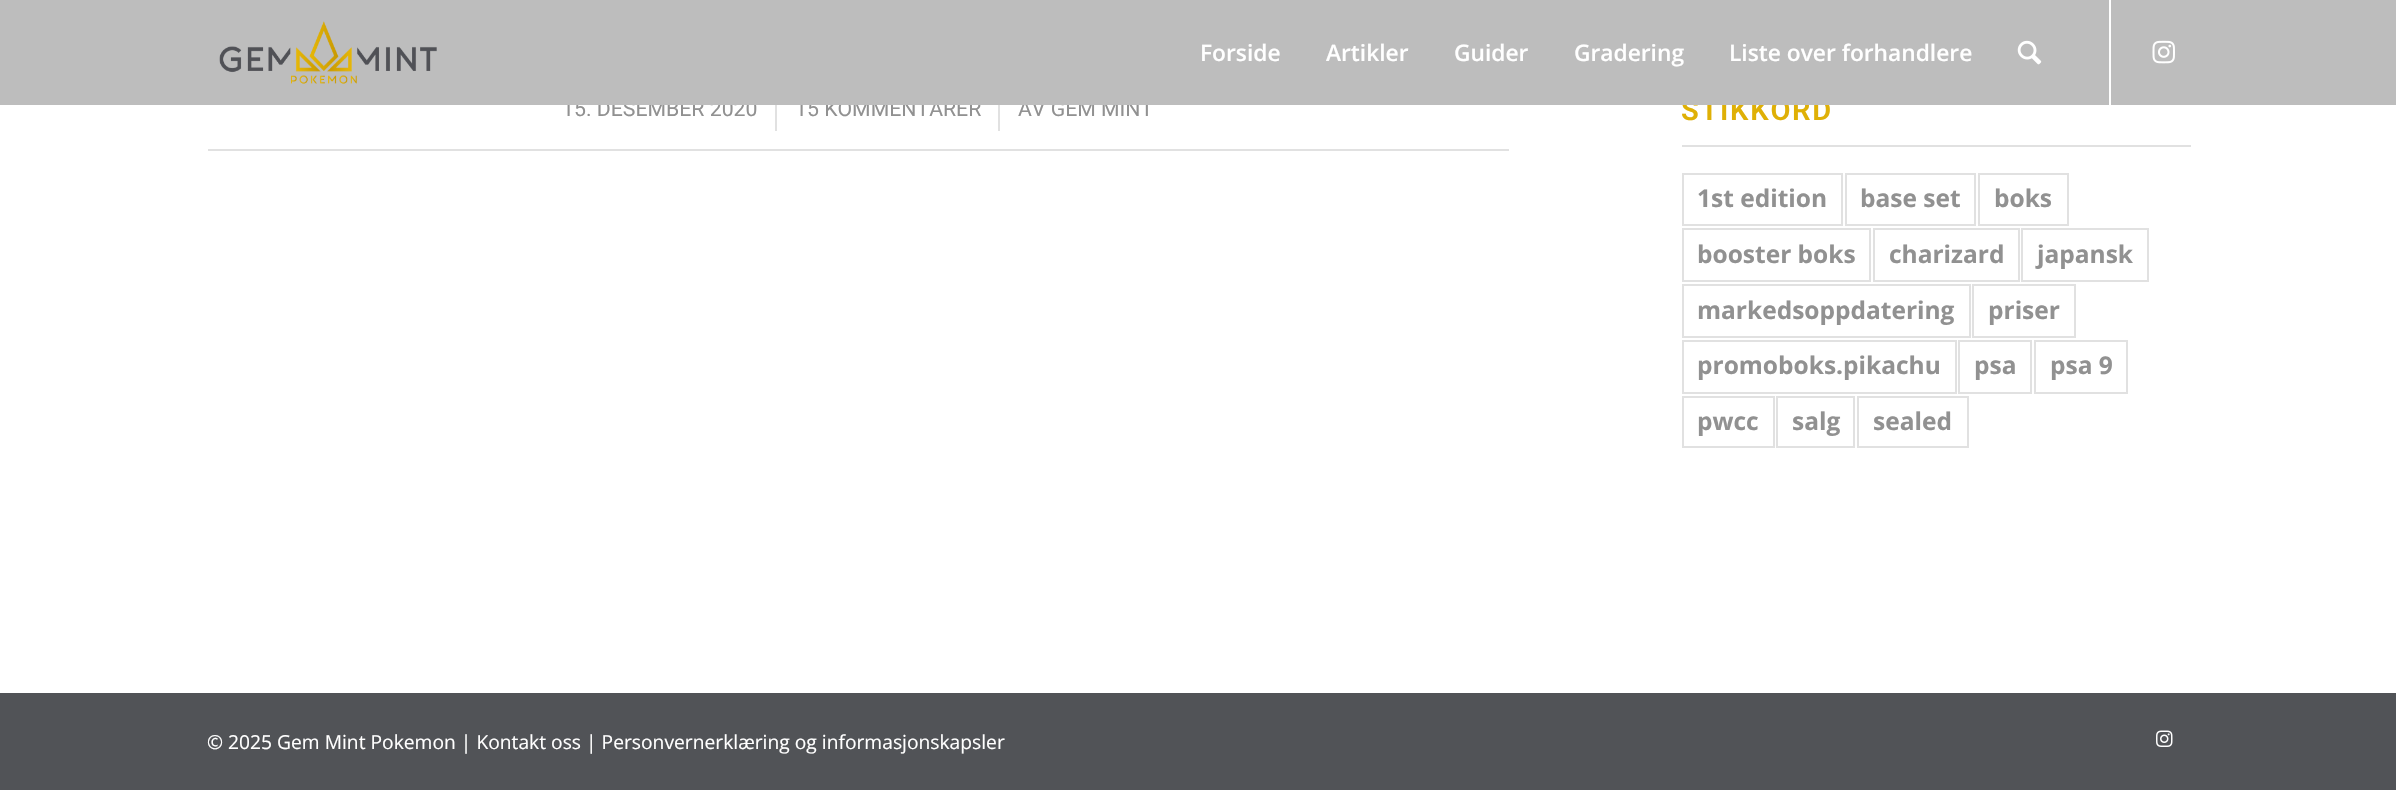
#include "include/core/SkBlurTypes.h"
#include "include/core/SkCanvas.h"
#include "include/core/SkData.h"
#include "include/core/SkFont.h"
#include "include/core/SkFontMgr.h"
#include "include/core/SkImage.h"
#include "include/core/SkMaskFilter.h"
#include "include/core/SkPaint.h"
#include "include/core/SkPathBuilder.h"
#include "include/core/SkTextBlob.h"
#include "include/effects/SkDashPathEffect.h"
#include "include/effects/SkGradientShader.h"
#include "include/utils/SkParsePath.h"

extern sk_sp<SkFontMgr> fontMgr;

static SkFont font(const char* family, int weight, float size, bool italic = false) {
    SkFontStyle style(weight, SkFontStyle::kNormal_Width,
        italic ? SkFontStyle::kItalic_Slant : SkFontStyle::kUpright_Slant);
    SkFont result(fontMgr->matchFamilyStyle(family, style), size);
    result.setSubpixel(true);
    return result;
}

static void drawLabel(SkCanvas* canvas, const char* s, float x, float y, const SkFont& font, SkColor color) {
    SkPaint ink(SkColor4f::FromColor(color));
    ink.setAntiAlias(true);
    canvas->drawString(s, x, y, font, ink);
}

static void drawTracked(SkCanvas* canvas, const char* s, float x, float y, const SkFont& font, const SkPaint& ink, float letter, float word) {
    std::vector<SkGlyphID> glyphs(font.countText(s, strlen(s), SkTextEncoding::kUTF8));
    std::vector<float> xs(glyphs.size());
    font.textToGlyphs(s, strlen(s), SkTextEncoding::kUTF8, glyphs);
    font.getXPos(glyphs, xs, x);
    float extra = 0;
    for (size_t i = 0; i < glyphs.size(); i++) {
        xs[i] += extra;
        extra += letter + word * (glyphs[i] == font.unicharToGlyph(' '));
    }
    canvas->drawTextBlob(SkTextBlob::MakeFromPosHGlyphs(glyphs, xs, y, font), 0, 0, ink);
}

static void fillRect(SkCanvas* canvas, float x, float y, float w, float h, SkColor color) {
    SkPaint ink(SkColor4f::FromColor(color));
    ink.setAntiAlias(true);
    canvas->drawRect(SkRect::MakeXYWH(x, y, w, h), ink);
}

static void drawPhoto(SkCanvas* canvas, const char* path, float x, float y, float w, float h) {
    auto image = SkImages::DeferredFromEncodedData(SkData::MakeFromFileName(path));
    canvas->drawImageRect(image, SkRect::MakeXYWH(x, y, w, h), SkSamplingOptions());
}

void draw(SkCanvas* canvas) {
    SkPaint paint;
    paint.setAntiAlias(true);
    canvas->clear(0xFFFFFFFF);
    SkFont font1 = font("Roboto", 400, 21.25f);
    drawLabel(canvas, "15. DESEMBER 2020", 562, 116, font1, 0xFF919191);
    drawLabel(canvas, "15 KOMMENTARER", 795, 116, font1, 0xFF919191);
    drawLabel(canvas, "AV GEM MINT", 1018, 116, font1, 0xFF919191);
    SkFont font2 = font("Roboto", 600, 29);
    paint.setColor(0xFFDFB006);
    drawTracked(canvas, "STIKKORD", 1681, 120, font2, paint, 1.75f, 0);
    fillRect(canvas, 0, 0, 2396, 105, 0xFFBDBDBD);
    drawPhoto(canvas, "assets/img1.png", 219, 21, 218, 63);
    fillRect(canvas, 2109, 0, 2, 105, 0xFFFFFFFF);
    SkFont font3 = font("Open Sans", 600, 22.75f);
    drawLabel(canvas, "Forside", 1200, 61, font3, 0xFFFFFFFF);
    drawLabel(canvas, "Artikler", 1326, 61, font3, 0xFFFFFFFF);
    drawLabel(canvas, "Guider", 1454, 61, font3, 0xFFFFFFFF);
    drawLabel(canvas, "Gradering", 1574, 61, font3, 0xFFFFFFFF);
    drawLabel(canvas, "Liste over forhandlere", 1729, 61, font3, 0xFFFFFFFF);
    drawPhoto(canvas, "assets/img2.png", 2017, 40, 25, 25);
    drawPhoto(canvas, "assets/img3.png", 2152, 40, 23, 24);
    fillRect(canvas, 208, 149, 1301, 2, 0xFFE1E1E1);
    fillRect(canvas, 775, 105, 2, 26, 0xFFE1E1E1);
    fillRect(canvas, 998, 105, 2, 26, 0xFFE1E1E1);
    fillRect(canvas, 1682, 145, 509, 2, 0xFFE1E1E1);
    paint.setStroke(true);
    paint.setStrokeWidth(2);
    paint.setColor(0xFFE1E1E1);
    canvas->drawRect(SkRect::MakeXYWH(1683, 174, 159, 51), paint);
    SkFont font4 = font("Open Sans", 700, 24.5f);
    drawLabel(canvas, "1st edition", 1697, 207, font4, 0xFF919191);
    canvas->drawRect(SkRect::MakeXYWH(1846, 174, 129, 51), paint);
    drawLabel(canvas, "base set", 1860, 207, font4, 0xFF919191);
    canvas->drawRect(SkRect::MakeXYWH(1979, 174, 89, 51), paint);
    drawLabel(canvas, "boks", 1994, 207, font4, 0xFF919191);
    canvas->drawRect(SkRect::MakeXYWH(1683, 229, 187, 52), paint);
    drawLabel(canvas, "booster boks", 1697, 263, font4, 0xFF919191);
    canvas->drawRect(SkRect::MakeXYWH(1874, 229, 145, 52), paint);
    drawLabel(canvas, "charizard", 1889, 263, font4, 0xFF919191);
    canvas->drawRect(SkRect::MakeXYWH(2022, 229, 126, 52), paint);
    drawLabel(canvas, "japansk", 2037, 263, font4, 0xFF919191);
    canvas->drawRect(SkRect::MakeXYWH(1683, 285, 287, 52), paint);
    drawLabel(canvas, "markedsoppdatering", 1697, 319, font4, 0xFF919191);
    canvas->drawRect(SkRect::MakeXYWH(1973, 285, 102, 52), paint);
    drawLabel(canvas, "priser", 1988, 319, font4, 0xFF919191);
    canvas->drawRect(SkRect::MakeXYWH(1683, 341, 273, 52), paint);
    drawLabel(canvas, "promoboks.pikachu", 1697, 374, font4, 0xFF919191);
    canvas->drawRect(SkRect::MakeXYWH(1959, 341, 72, 52), paint);
    drawLabel(canvas, "psa", 1974, 374, font4, 0xFF919191);
    canvas->drawRect(SkRect::MakeXYWH(2035, 341, 92, 52), paint);
    drawLabel(canvas, "psa 9", 2050, 374, font4, 0xFF919191);
    canvas->drawRect(SkRect::MakeXYWH(1683, 397, 91, 50), paint);
    drawLabel(canvas, "pwcc", 1697, 430, font4, 0xFF919191);
    canvas->drawRect(SkRect::MakeXYWH(1777, 397, 77, 50), paint);
    drawLabel(canvas, "salg", 1792, 430, font4, 0xFF919191);
    canvas->drawRect(SkRect::MakeXYWH(1858, 397, 110, 50), paint);
    drawLabel(canvas, "sealed", 1873, 430, font4, 0xFF919191);
    fillRect(canvas, 0, 693, 2396, 97, 0xFF515357);
    SkFont font5 = font("Open Sans", 400, 19.25f);
    drawLabel(canvas, "© 2025 Gem Mint Pokemon | Kontakt oss | Personvernerklæring og informasjonskapsler", 207, 749, font5, 0xFFFFFFFF);
    drawPhoto(canvas, "assets/img4.png", 2156, 730, 17, 17);
}
